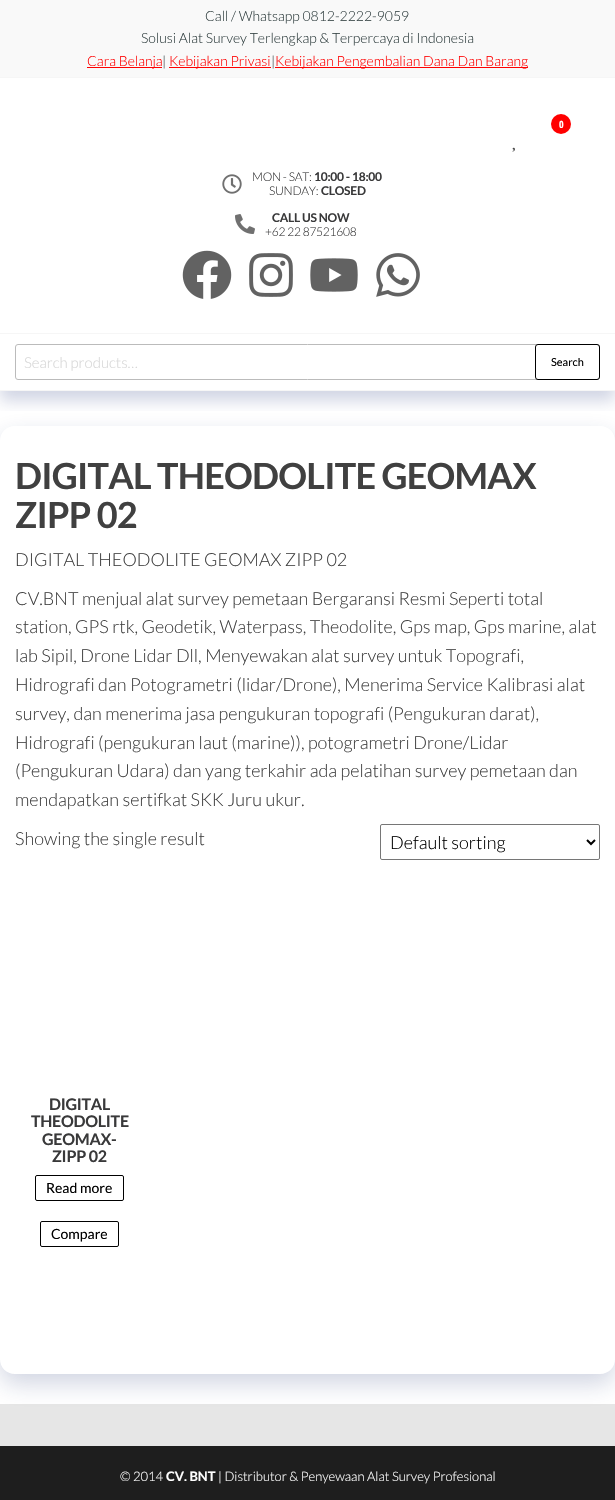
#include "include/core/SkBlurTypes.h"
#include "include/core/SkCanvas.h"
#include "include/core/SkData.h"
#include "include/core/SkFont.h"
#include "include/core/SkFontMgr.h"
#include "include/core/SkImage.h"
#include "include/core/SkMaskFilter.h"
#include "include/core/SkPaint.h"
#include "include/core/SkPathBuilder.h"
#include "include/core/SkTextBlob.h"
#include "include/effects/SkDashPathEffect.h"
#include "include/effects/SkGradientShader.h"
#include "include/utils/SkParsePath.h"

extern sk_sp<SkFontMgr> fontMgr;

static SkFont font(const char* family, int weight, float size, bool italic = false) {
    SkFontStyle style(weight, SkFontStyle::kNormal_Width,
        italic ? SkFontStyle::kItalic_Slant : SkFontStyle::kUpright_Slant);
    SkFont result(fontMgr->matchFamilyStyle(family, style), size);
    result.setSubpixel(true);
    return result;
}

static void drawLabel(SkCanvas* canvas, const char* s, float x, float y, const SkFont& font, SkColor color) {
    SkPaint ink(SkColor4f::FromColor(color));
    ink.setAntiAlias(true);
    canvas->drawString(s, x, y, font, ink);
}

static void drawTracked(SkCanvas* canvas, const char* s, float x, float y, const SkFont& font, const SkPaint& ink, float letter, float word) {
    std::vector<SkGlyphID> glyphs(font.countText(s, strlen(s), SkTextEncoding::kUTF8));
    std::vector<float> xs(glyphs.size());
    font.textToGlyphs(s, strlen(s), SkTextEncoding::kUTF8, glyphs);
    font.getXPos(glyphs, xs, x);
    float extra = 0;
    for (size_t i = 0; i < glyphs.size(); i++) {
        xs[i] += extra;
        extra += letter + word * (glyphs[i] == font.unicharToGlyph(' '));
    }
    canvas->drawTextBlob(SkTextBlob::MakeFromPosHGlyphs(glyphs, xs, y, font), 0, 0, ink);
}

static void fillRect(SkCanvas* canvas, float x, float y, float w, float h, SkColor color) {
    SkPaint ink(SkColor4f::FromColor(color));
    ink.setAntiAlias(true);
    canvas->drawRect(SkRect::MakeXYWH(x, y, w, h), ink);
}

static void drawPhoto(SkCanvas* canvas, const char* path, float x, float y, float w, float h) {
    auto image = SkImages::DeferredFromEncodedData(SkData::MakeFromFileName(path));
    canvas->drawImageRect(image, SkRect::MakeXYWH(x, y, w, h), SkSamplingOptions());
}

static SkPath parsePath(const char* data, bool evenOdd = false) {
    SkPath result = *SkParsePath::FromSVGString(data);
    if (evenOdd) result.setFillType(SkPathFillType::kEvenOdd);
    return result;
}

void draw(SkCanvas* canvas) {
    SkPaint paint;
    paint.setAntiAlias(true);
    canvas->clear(0xFFFFFFFF);
    fillRect(canvas, 0, 0, 615, 77, 0xFFF9F9F9);
    fillRect(canvas, 0, 77, 615, 1, 0xFFF6F6F6);
    SkFont font1 = font("Lato", 300, 14);
    drawLabel(canvas, "Call / Whatsapp 0812-2222-9059", 205, 21, font1, 0xFF334142);
    drawLabel(canvas, "Solusi Alat Survey Terlengkap & Terpercaya di Indonesia", 141, 43, font1, 0xFF334142);
    fillRect(canvas, 87, 67, 75, 1, 0xFFFF0000);
    drawLabel(canvas, "Cara Belanja", 87, 66, font1, 0xFFFF0000);
    drawLabel(canvas, "|", 162, 66, font1, 0xFF334142);
    fillRect(canvas, 169, 67, 102, 1, 0xFFFF0000);
    drawLabel(canvas, "Kebijakan Privasi", 169, 66, font1, 0xFFFF0000);
    drawLabel(canvas, "|", 271, 66, font1, 0xFF334142);
    fillRect(canvas, 275, 67, 253, 1, 0xFFFF0000);
    drawLabel(canvas, "Kebijakan Pengembalian Dana Dan Barang", 275, 66, font1, 0xFFFF0000);
    fillRect(canvas, 0, 333, 615, 1, 0xFFF6F6F6);
    paint.setColor(0xFFFF0000);
    canvas->drawCircle(561, 124, 10, paint);
    SkFont font2 = font("Open Sans Condensed", 700, 10);
    drawLabel(canvas, "0", 559, 128, font2, 0xFFFFFFFF);
    drawPhoto(canvas, "assets/img1.png", 512, 147, 3, 5);
    drawPhoto(canvas, "assets/img2.png", 222, 174, 20, 20);
    SkFont font3 = font("Lato", 300, 12);
    paint.setColor(0xFF39393A);
    drawTracked(canvas, "MON - SAT:", 252, 181, font3, paint, -0.25f, 0);
    SkFont font4 = font("Lato", 700, 12);
    drawTracked(canvas, "10:00 - 18:00", 314, 181, font4, paint, -0.25f, 0);
    drawTracked(canvas, "SUNDAY:", 269, 195, font3, paint, -0.25f, 0);
    drawTracked(canvas, "CLOSED", 321, 195, font4, paint, -0.25f, 0);
    drawPhoto(canvas, "assets/img3.png", 235, 214, 20, 20);
    drawTracked(canvas, "CALL US NOW", 272, 222, font4, paint, -0.25f, 0);
    drawTracked(canvas, "+62 22 87521608", 265, 236, font3, paint, -0.25f, 0);
    drawPhoto(canvas, "assets/img4.png", 182, 250, 50, 49);
    drawPhoto(canvas, "assets/img5.png", 249, 253, 44, 44);
    drawPhoto(canvas, "assets/img6.png", 310, 258, 48, 34);
    drawPhoto(canvas, "assets/img7.png", 376, 253, 44, 44);
    canvas->save();
    canvas->clipRect(SkRect::MakeXYWH(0, 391, 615, 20));
    paint.setColor(0x33192D78);
    paint.setMaskFilter(SkMaskFilter::MakeBlur(kNormal_SkBlurStyle, 7.5f));
    canvas->drawRect(SkRect::MakeXYWH(0, 344, 615, 57), paint);
    paint.setMaskFilter(nullptr);
    canvas->restore();
    fillRect(canvas, 0, 390, 615, 1, 0xFFF6F6F6);
    paint.setStroke(true);
    paint.setStrokeWidth(1);
    paint.setColor(0xFFBBBBBB);
    canvas->drawRoundRect(SkRect::MakeXYWH(15.5f, 344.5f, 584, 35), 2.5f, 2.5f, paint);
    SkFont font5 = font("Lato", 300, 15);
    drawLabel(canvas, "Search products…", 24, 368, font5, 0xFFD7D7D7);
    paint.setColor(0xFF000000);
    canvas->drawRoundRect(SkRect::MakeXYWH(535.5f, 344.5f, 64, 35), 2.5f, 2.5f, paint);
    SkFont font6 = font("Lato", 400, 11);
    drawLabel(canvas, "Search", 551, 366, font6, 0xFF000000);
    fillRect(canvas, 0, 1404, 615, 42, 0xFFE6E6E6);
    canvas->save();
    canvas->clipPath(parsePath("M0 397H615V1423H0ZM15 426H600C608.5 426 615 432.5 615 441V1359C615 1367.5 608.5 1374 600 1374H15C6.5 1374 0 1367.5 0 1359V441C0 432.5 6.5 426 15 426Z", true), true);
    paint.setStroke(false);
    paint.setColor(0x33192D6E);
    paint.setMaskFilter(SkMaskFilter::MakeBlur(kNormal_SkBlurStyle, 12.5f));
    canvas->drawRoundRect(SkRect::MakeXYWH(0, 436, 615, 948), 15, 15, paint);
    paint.setMaskFilter(nullptr);
    canvas->restore();
    SkFont font7 = font("Lato", 700, 36);
    paint.setColor(0xFF404040);
    drawTracked(canvas, "DIGITAL THEODOLITE GEOMAX", 15, 489, font7, paint, -0.75f, 0);
    drawTracked(canvas, "ZIPP 02", 15, 528, font7, paint, -0.75f, 0);
    SkFont font8 = font("Lato", 300, 18);
    drawLabel(canvas, "DIGITAL THEODOLITE GEOMAX ZIPP 02", 15, 566, font8, 0xFF404040);
    drawLabel(canvas, "CV.BNT menjual alat survey pemetaan Bergaransi Resmi Seperti total", 15, 605, font8, 0xFF404040);
    drawLabel(canvas, "station, GPS rtk, Geodetik, Waterpass, Theodolite, Gps map, Gps marine, alat", 15, 633, font8, 0xFF404040);
    drawLabel(canvas, "lab Sipil, Drone Lidar Dll, Menyewakan alat survey untuk Topografi,", 15, 662, font8, 0xFF404040);
    drawLabel(canvas, "Hidrografi dan Potogrametri (lidar/Drone), Menerima Service Kalibrasi alat", 15, 691, font8, 0xFF404040);
    drawLabel(canvas, "survey, dan menerima jasa pengukuran topografi (Pengukuran darat),", 15, 720, font8, 0xFF404040);
    drawLabel(canvas, "Hidrografi (pengukuran laut (marine)), potogrametri Drone/Lidar", 15, 749, font8, 0xFF404040);
    drawLabel(canvas, "(Pengukuran Udara) dan yang terkahir ada pelatihan survey pemetaan dan", 15, 777, font8, 0xFF404040);
    drawLabel(canvas, "mendapatkan sertifkat SKK Juru ukur.", 15, 806, font8, 0xFF404040);
    drawLabel(canvas, "Showing the single result", 15, 845, font8, 0xFF404040);
    paint.setStroke(true);
    paint.setColor(0xFF767676);
    canvas->drawRoundRect(SkRect::MakeXYWH(380.5f, 824.5f, 219, 35), 1.5f, 1.5f, paint);
    paint.setStrokeWidth(2);
    paint.setColor(0xFF000000);
    canvas->drawPath(parsePath("M587 840L591 844L595 840"), paint);
    drawLabel(canvas, "Default sorting", 390, 849, font8, 0xFF000000);
    SkFont font9 = font("Lato", 700, 16);
    paint.setStroke(false);
    paint.setColor(0xFF39393A);
    drawTracked(canvas, "DIGITAL", 49, 1110, font9, paint, -0.25f, 0);
    drawTracked(canvas, "THEODOLITE", 31, 1127, font9, paint, -0.25f, 0);
    drawTracked(canvas, "GEOMAX-", 42, 1145, font9, paint, -0.25f, 0);
    drawTracked(canvas, "ZIPP 02", 52, 1162, font9, paint, -0.25f, 0);
    paint.setStroke(true);
    paint.setStrokeWidth(1);
    paint.setColor(0xFF000000);
    canvas->drawRoundRect(SkRect::MakeXYWH(35.5f, 1175.5f, 88, 25), 1.5f, 1.5f, paint);
    SkFont font10 = font("Lato", 400, 14);
    drawLabel(canvas, "Read more", 46, 1193, font10, 0xFF000000);
    canvas->drawRoundRect(SkRect::MakeXYWH(40.5f, 1221.5f, 78, 25), 1.5f, 1.5f, paint);
    drawLabel(canvas, "Compare", 51, 1239, font10, 0xFF000000);
    fillRect(canvas, 0, 1446, 615, 54, 0xFF1E1E1E);
    SkFont font11 = font("Lato", 300, 13);
    drawLabel(canvas, "© 2014", 120, 1481, font11, 0xFFFFFFFF);
    SkFont font12 = font("Lato", 700, 13);
    drawLabel(canvas, "CV. BNT", 166, 1481, font12, 0xFFFFFFFF);
    drawLabel(canvas, "| Distributor & Penyewaan Alat Survey Profesional", 218, 1481, font11, 0xFFFFFFFF);
}
